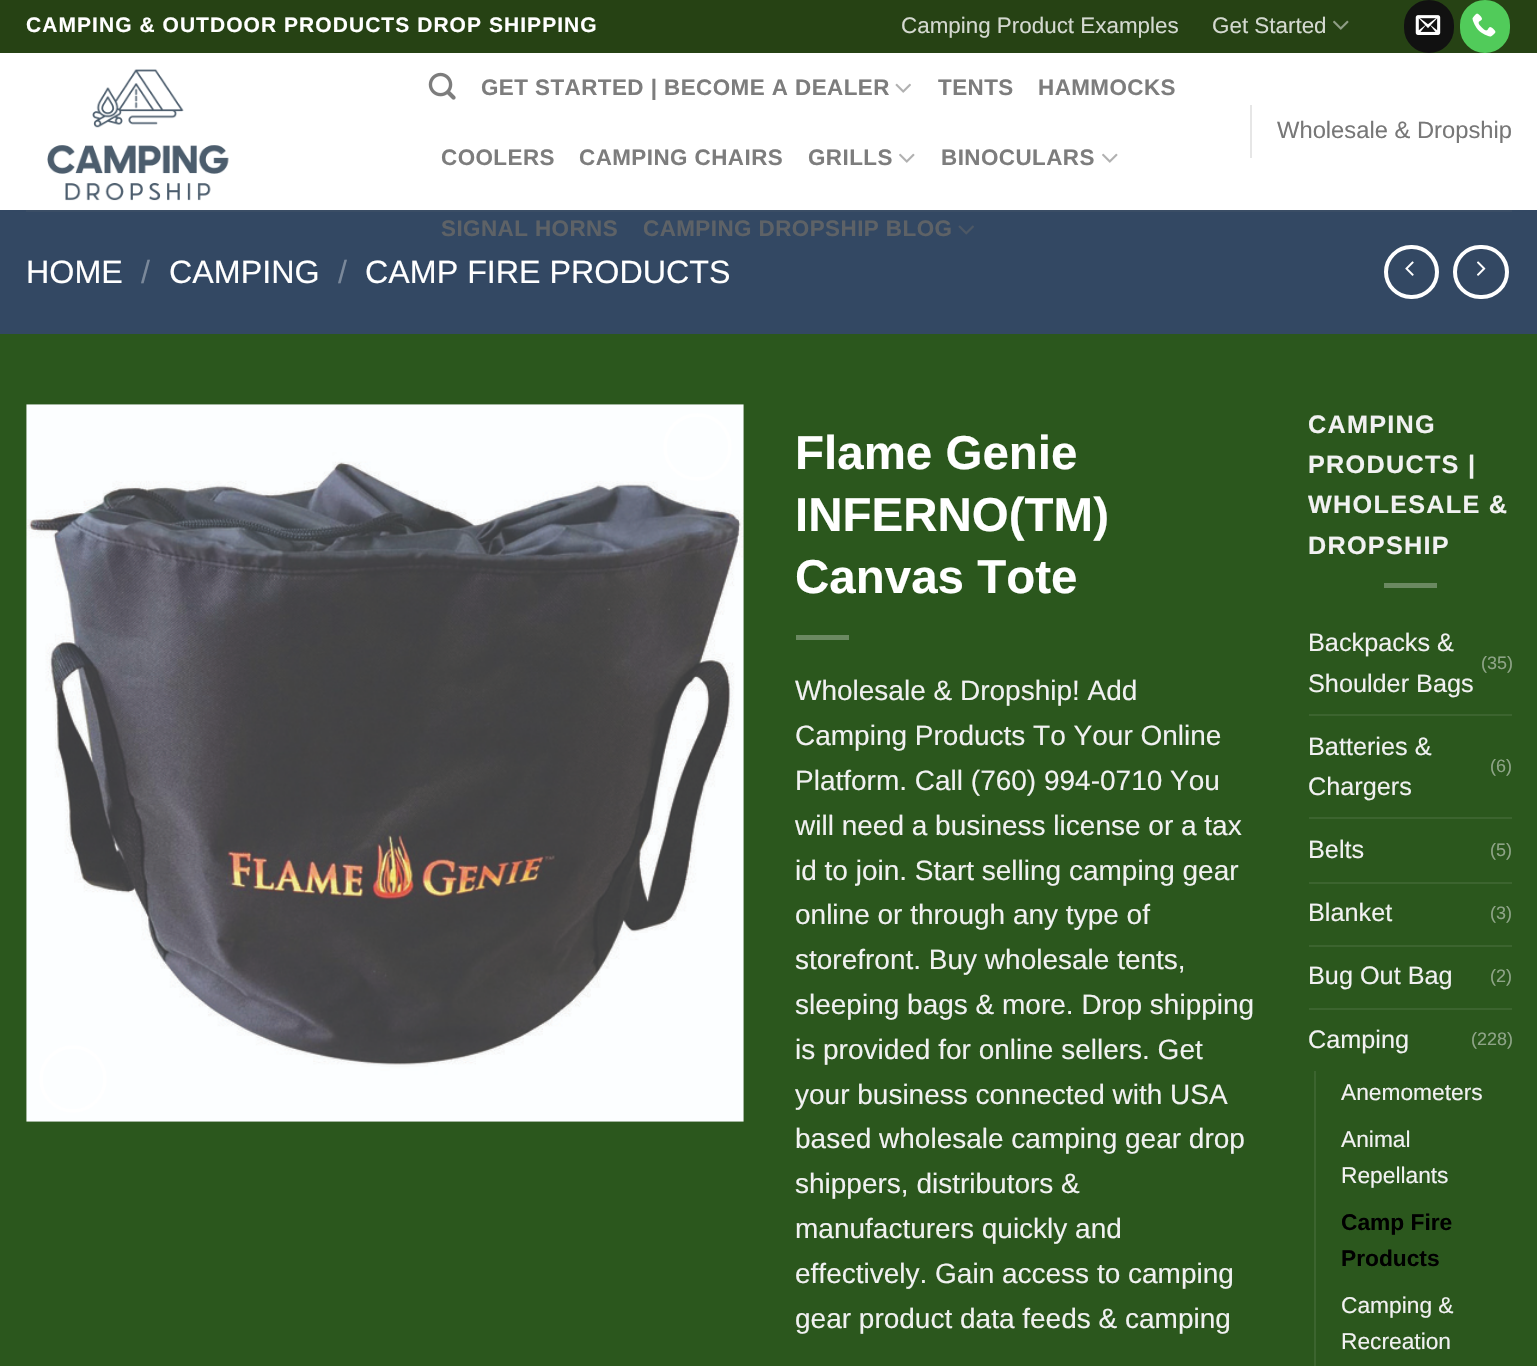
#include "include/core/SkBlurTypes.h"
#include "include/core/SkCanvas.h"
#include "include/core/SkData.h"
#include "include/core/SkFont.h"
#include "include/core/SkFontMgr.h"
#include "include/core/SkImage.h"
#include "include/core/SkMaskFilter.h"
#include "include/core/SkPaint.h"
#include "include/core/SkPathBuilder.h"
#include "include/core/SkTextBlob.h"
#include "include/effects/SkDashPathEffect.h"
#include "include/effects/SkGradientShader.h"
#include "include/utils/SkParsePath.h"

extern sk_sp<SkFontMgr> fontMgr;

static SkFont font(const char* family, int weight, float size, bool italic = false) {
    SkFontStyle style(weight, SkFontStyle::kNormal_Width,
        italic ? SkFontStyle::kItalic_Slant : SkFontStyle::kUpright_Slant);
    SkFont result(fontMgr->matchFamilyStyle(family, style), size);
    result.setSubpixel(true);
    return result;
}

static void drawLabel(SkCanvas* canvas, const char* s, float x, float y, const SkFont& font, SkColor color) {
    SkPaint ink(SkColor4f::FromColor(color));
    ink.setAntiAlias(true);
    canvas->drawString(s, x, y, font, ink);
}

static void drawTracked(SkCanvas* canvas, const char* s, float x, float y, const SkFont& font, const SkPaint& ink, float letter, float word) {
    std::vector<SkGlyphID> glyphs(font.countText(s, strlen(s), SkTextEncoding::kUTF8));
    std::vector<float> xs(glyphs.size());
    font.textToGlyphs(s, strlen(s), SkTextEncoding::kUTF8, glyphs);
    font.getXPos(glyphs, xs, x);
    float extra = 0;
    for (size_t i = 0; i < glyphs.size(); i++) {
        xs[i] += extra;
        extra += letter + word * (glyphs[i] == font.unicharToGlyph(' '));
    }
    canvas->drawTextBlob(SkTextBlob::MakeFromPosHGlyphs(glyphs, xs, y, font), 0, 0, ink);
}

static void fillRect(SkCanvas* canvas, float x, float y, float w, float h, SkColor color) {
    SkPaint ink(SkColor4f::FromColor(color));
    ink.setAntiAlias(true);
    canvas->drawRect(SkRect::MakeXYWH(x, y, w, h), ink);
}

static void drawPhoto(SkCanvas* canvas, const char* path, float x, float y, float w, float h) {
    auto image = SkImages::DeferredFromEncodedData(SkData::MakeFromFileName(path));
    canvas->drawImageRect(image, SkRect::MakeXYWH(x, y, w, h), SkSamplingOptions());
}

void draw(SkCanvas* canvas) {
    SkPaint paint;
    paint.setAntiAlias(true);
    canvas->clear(0xFF2B571D);
    fillRect(canvas, 0, 0, 1537, 53, 0xFF264214);
    SkFont font1 = font("Liberation Sans", 700, 21);
    paint.setColor(0xFFFFFFFF);
    drawTracked(canvas, "CAMPING & OUTDOOR PRODUCTS DROP SHIPPING", 26, 32, font1, paint, 1.05f, 0);
    SkFont font2 = font("Liberation Sans", 400, 22.4f);
    drawLabel(canvas, "Camping Product Examples", 901, 33, font2, 0xFFD4D9D0);
    drawLabel(canvas, "Get Started", 1212, 33, font2, 0xFFD4D9D0);
    drawPhoto(canvas, "assets/img1.png", 1333, 20, 16, 10);
    paint.setColor(0xFF111111);
    canvas->drawRoundRect(SkRect::MakeXYWH(1405, 1, 48, 51), 24, 24, paint);
    paint.setStroke(true);
    paint.setStrokeWidth(2);
    canvas->drawRoundRect(SkRect::MakeXYWH(1405, 1, 48, 51), 24, 24, paint);
    drawPhoto(canvas, "assets/img2.png", 1415, 15, 26, 20);
    paint.setStroke(false);
    paint.setColor(0xFF51CB5A);
    canvas->drawRoundRect(SkRect::MakeXYWH(1461, 1, 48, 51), 24, 24, paint);
    paint.setStroke(true);
    canvas->drawRoundRect(SkRect::MakeXYWH(1461, 1, 48, 51), 24, 24, paint);
    drawPhoto(canvas, "assets/img3.png", 1472, 13, 24, 24);
    fillRect(canvas, 0, 53, 1537, 157, 0xFFFFFFFF);
    drawPhoto(canvas, "assets/img4.png", 47, 69, 182, 132);
    drawPhoto(canvas, "assets/img5.png", 428, 72, 28, 28);
    SkFont font3 = font("Liberation Sans", 700, 22.4f);
    paint.setStroke(false);
    paint.setColor(0xFF7D7D7D);
    drawTracked(canvas, "GET STARTED | BECOME A DEALER", 481, 95, font3, paint, 0.45f, 0);
    drawPhoto(canvas, "assets/img6.png", 895, 83, 16, 10);
    drawTracked(canvas, "TENTS", 938, 95, font3, paint, 0.45f, 0);
    drawTracked(canvas, "HAMMOCKS", 1038, 95, font3, paint, 0.45f, 0);
    drawTracked(canvas, "COOLERS", 441, 165, font3, paint, 0.45f, 0);
    drawTracked(canvas, "CAMPING CHAIRS", 579, 165, font3, paint, 0.45f, 0);
    drawTracked(canvas, "GRILLS", 808, 165, font3, paint, 0.45f, 0);
    drawPhoto(canvas, "assets/img7.png", 899, 153, 16, 10);
    drawTracked(canvas, "BINOCULARS", 941, 165, font3, paint, 0.45f, 0);
    drawPhoto(canvas, "assets/img7.png", 1102, 153, 16, 10);
    fillRect(canvas, 0, 210, 1537, 124, 0xFF334863);
    paint.setColor(0xFF5E6266);
    drawTracked(canvas, "SIGNAL HORNS", 441, 236, font3, paint, 0.45f, 0);
    drawTracked(canvas, "CAMPING DROPSHIP BLOG", 643, 236, font3, paint, 0.45f, 0);
    drawPhoto(canvas, "assets/img8.png", 958, 225, 16, 10);
    fillRect(canvas, 1250, 105, 2, 53, 0xFFE6E6E6);
    SkFont font4 = font("Liberation Sans", 400, 23.75f);
    drawLabel(canvas, "Wholesale & Dropship", 1277, 138, font4, 0xFF777777);
    fillRect(canvas, 26, 210, 1486, 2, 0xFF3A4D65);
    SkFont font5 = font("Liberation Sans", 400, 32.25f);
    drawLabel(canvas, "HOME", 26, 283, font5, 0xFFFFFFFF);
    drawLabel(canvas, "/", 141, 283, font5, 0xFF7A889A);
    drawLabel(canvas, "CAMPING", 169, 283, font5, 0xFFFFFFFF);
    drawLabel(canvas, "/", 338, 283, font5, 0xFF7A889A);
    drawLabel(canvas, "CAMP FIRE PRODUCTS", 365, 283, font5, 0xFFFFFFFF);
    paint.setStroke(true);
    paint.setStrokeWidth(4);
    paint.setColor(0xFFFFFFFF);
    canvas->drawRoundRect(SkRect::MakeXYWH(1386, 247, 51, 50), 25, 25, paint);
    drawPhoto(canvas, "assets/img9.png", 1405, 261, 9, 15);
    canvas->drawRoundRect(SkRect::MakeXYWH(1455, 247, 52, 50), 25, 25, paint);
    drawPhoto(canvas, "assets/img10.png", 1477, 261, 9, 15);
    drawPhoto(canvas, "assets/img11.png", 26, 404, 718, 718);
    canvas->drawRoundRect(SkRect::MakeXYWH(665, 415, 65, 64), 32, 32, paint);
    canvas->drawCircle(73, 1079, 32, paint);
    SkFont font6 = font("Liberation Sans", 700, 47.5f);
    drawLabel(canvas, "Flame Genie", 795, 469, font6, 0xFFFFFFFF);
    drawLabel(canvas, "INFERNO(TM)", 795, 531, font6, 0xFFFFFFFF);
    drawLabel(canvas, "Canvas Tote", 795, 593, font6, 0xFFFFFFFF);
    fillRect(canvas, 796, 635, 53, 5, 0xFF6B8961);
    SkFont font7 = font("Liberation Sans", 400, 28);
    drawLabel(canvas, "Wholesale & Dropship! Add", 795, 700, font7, 0xFFF1F1F1);
    drawLabel(canvas, "Camping Products To Your Online", 795, 745, font7, 0xFFF1F1F1);
    drawLabel(canvas, "Platform. Call (760) 994-0710 You", 795, 790, font7, 0xFFF1F1F1);
    drawLabel(canvas, "will need a business license or a tax", 795, 835, font7, 0xFFF1F1F1);
    drawLabel(canvas, "id to join. Start selling camping gear", 795, 880, font7, 0xFFF1F1F1);
    drawLabel(canvas, "online or through any type of", 795, 924, font7, 0xFFF1F1F1);
    drawLabel(canvas, "storefront. Buy wholesale tents,", 795, 969, font7, 0xFFF1F1F1);
    drawLabel(canvas, "sleeping bags & more. Drop shipping", 795, 1014, font7, 0xFFF1F1F1);
    drawLabel(canvas, "is provided for online sellers. Get", 795, 1059, font7, 0xFFF1F1F1);
    drawLabel(canvas, "your business connected with USA", 795, 1104, font7, 0xFFF1F1F1);
    drawLabel(canvas, "based wholesale camping gear drop", 795, 1148, font7, 0xFFF1F1F1);
    drawLabel(canvas, "shippers, distributors &", 795, 1193, font7, 0xFFF1F1F1);
    drawLabel(canvas, "manufacturers quickly and", 795, 1238, font7, 0xFFF1F1F1);
    drawLabel(canvas, "effectively. Gain access to camping", 795, 1283, font7, 0xFFF1F1F1);
    drawLabel(canvas, "gear product data feeds & camping", 795, 1328, font7, 0xFFF1F1F1);
    SkFont font8 = font("Liberation Sans", 700, 25.25f);
    paint.setStroke(false);
    paint.setColor(0xFFF1F1F1);
    drawTracked(canvas, "CAMPING", 1308, 433, font8, paint, 1.25f, 0);
    drawTracked(canvas, "PRODUCTS |", 1308, 473, font8, paint, 1.25f, 0);
    drawTracked(canvas, "WHOLESALE &", 1308, 513, font8, paint, 1.25f, 0);
    drawTracked(canvas, "DROPSHIP", 1308, 554, font8, paint, 1.25f, 0);
    fillRect(canvas, 1384, 583, 53, 5, 0xFF6B8961);
    SkFont font9 = font("Liberation Sans", 400, 25.25f);
    drawLabel(canvas, "Backpacks &", 1308, 651, font9, 0xFFF1F1F1);
    drawLabel(canvas, "Shoulder Bags", 1308, 692, font9, 0xFFF1F1F1);
    SkFont font10 = font("Liberation Sans", 400, 18);
    drawLabel(canvas, "(35)", 1481, 669, font10, 0xFF8EA487);
    fillRect(canvas, 1309, 714, 203, 2, 0xFF3C642F);
    drawLabel(canvas, "Batteries &", 1308, 755, font9, 0xFFF1F1F1);
    drawLabel(canvas, "Chargers", 1308, 795, font9, 0xFFF1F1F1);
    drawLabel(canvas, "(6)", 1490, 772, font10, 0xFF8EA487);
    fillRect(canvas, 1309, 817, 203, 2, 0xFF3C642F);
    drawLabel(canvas, "Belts", 1308, 858, font9, 0xFFF1F1F1);
    drawLabel(canvas, "(5)", 1490, 856, font10, 0xFF8EA487);
    fillRect(canvas, 1309, 882, 203, 2, 0xFF3C642F);
    drawLabel(canvas, "Blanket", 1308, 921, font9, 0xFFF1F1F1);
    drawLabel(canvas, "(3)", 1490, 919, font10, 0xFF8EA487);
    fillRect(canvas, 1309, 945, 203, 2, 0xFF3C642F);
    drawLabel(canvas, "Bug Out Bag", 1308, 984, font9, 0xFFF1F1F1);
    drawLabel(canvas, "(2)", 1490, 982, font10, 0xFF8EA487);
    fillRect(canvas, 1309, 1008, 203, 2, 0xFF3C642F);
    drawLabel(canvas, "Camping", 1308, 1048, font9, 0xFFF1F1F1);
    drawLabel(canvas, "(228)", 1471, 1045, font10, 0xFF8EA487);
    fillRect(canvas, 1314, 1071, 2, 295, 0xFF3C642F);
    SkFont font11 = font("Liberation Sans", 400, 22.75f);
    drawLabel(canvas, "Anemometers", 1341, 1100, font11, 0xFFF1F1F1);
    drawLabel(canvas, "Animal", 1341, 1147, font11, 0xFFF1F1F1);
    drawLabel(canvas, "Repellants", 1341, 1183, font11, 0xFFF1F1F1);
    SkFont font12 = font("Liberation Sans", 700, 22.75f);
    drawLabel(canvas, "Camp Fire", 1341, 1230, font12, 0xFF000000);
    drawLabel(canvas, "Products", 1341, 1266, font12, 0xFF000000);
    drawLabel(canvas, "Camping &", 1341, 1313, font11, 0xFFF1F1F1);
    drawLabel(canvas, "Recreation", 1341, 1349, font11, 0xFFF1F1F1);
}
